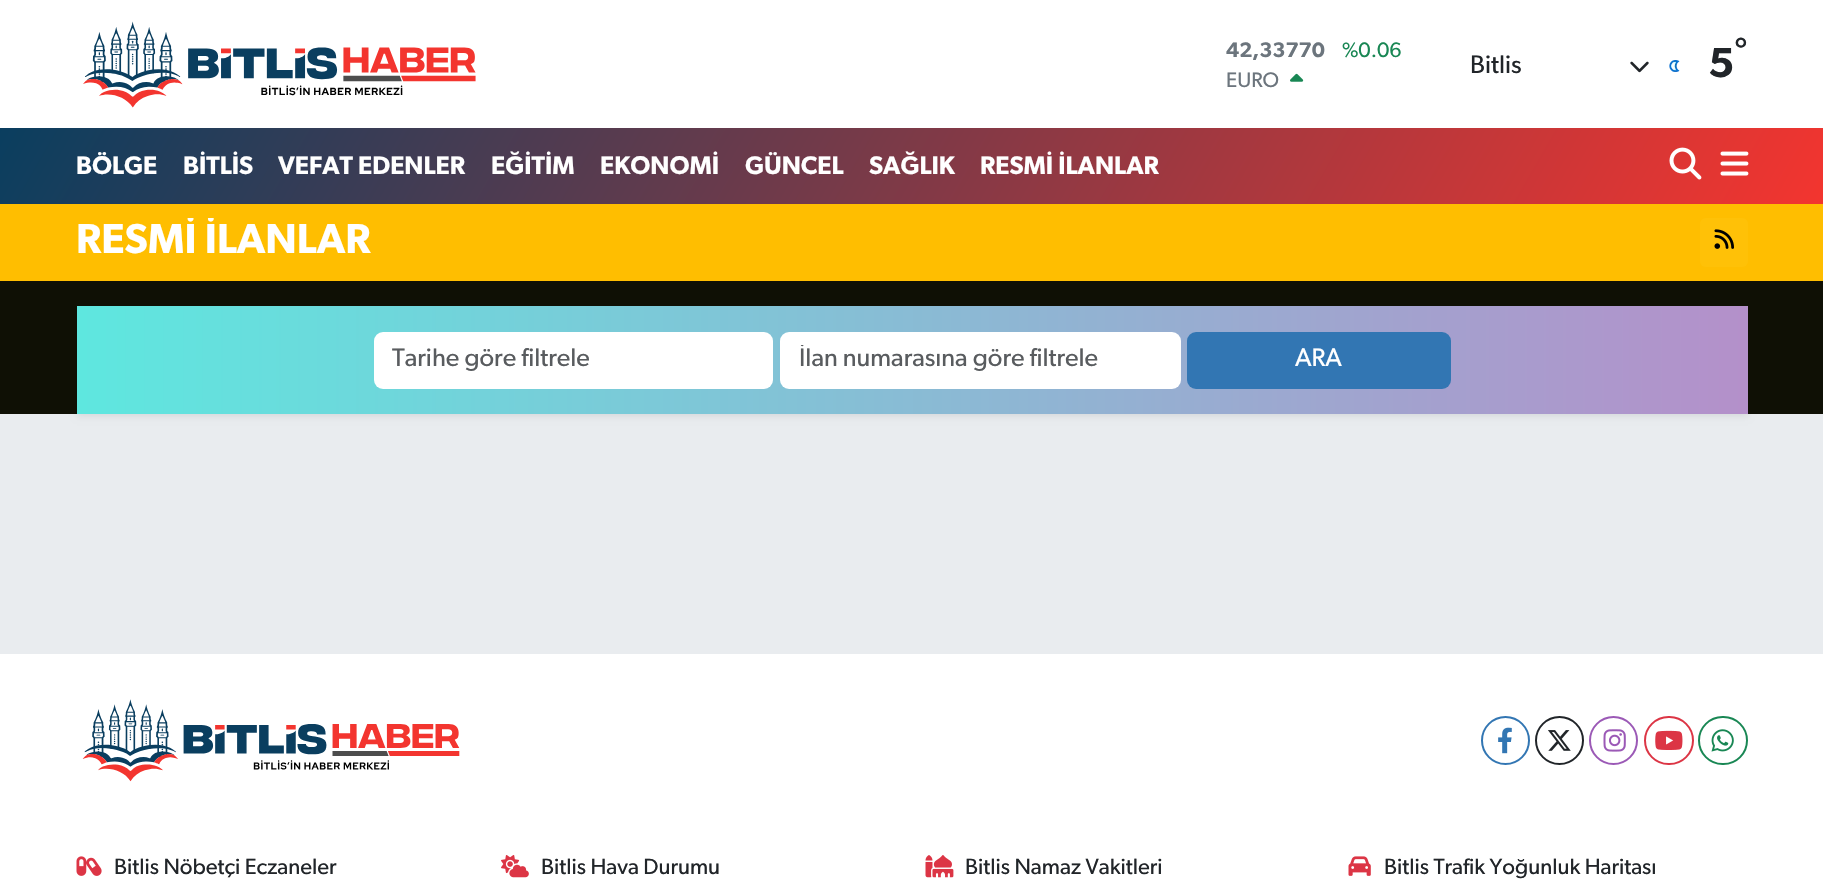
#include "include/core/SkBlurTypes.h"
#include "include/core/SkCanvas.h"
#include "include/core/SkData.h"
#include "include/core/SkFont.h"
#include "include/core/SkFontMgr.h"
#include "include/core/SkImage.h"
#include "include/core/SkMaskFilter.h"
#include "include/core/SkPaint.h"
#include "include/core/SkPathBuilder.h"
#include "include/core/SkTextBlob.h"
#include "include/effects/SkDashPathEffect.h"
#include "include/effects/SkGradientShader.h"
#include "include/utils/SkParsePath.h"

extern sk_sp<SkFontMgr> fontMgr;

static SkFont font(const char* family, int weight, float size, bool italic = false) {
    SkFontStyle style(weight, SkFontStyle::kNormal_Width,
        italic ? SkFontStyle::kItalic_Slant : SkFontStyle::kUpright_Slant);
    SkFont result(fontMgr->matchFamilyStyle(family, style), size);
    result.setSubpixel(true);
    return result;
}

static void drawLabel(SkCanvas* canvas, const char* s, float x, float y, const SkFont& font, SkColor color) {
    SkPaint ink(SkColor4f::FromColor(color));
    ink.setAntiAlias(true);
    canvas->drawString(s, x, y, font, ink);
}

static void fillRect(SkCanvas* canvas, float x, float y, float w, float h, SkColor color) {
    SkPaint ink(SkColor4f::FromColor(color));
    ink.setAntiAlias(true);
    canvas->drawRect(SkRect::MakeXYWH(x, y, w, h), ink);
}

static void fillRRect(SkCanvas* canvas, float x, float y, float w, float h, float radius, SkColor color) {
    SkPaint ink(SkColor4f::FromColor(color));
    ink.setAntiAlias(true);
    canvas->drawRoundRect(SkRect::MakeXYWH(x, y, w, h), radius, radius, ink);
}

static void drawPhoto(SkCanvas* canvas, const char* path, float x, float y, float w, float h) {
    auto image = SkImages::DeferredFromEncodedData(SkData::MakeFromFileName(path));
    canvas->drawImageRect(image, SkRect::MakeXYWH(x, y, w, h), SkSamplingOptions());
}

void draw(SkCanvas* canvas) {
    SkPaint paint;
    paint.setAntiAlias(true);
    canvas->clear(0xFFE9ECEF);
    fillRect(canvas, 0, 0, 1823, 128, 0xFFFFFFFF);
    drawPhoto(canvas, "assets/img1.png", 83, 21, 393, 87);
    SkFont font1 = font("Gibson", 600, 21);
    drawLabel(canvas, "42,33770", 1226, 57, font1, 0xFF6C757D);
    SkFont font2 = font("Gibson", 400, 21);
    drawLabel(canvas, "%0.06", 1342, 57, font2, 0xFF198754);
    drawLabel(canvas, "EURO", 1226, 87, font2, 0xFF6C757D);
    drawPhoto(canvas, "assets/img2.png", 1290, 73, 14, 9);
    SkFont font3 = font("Gibson", 400, 25.5f);
    drawLabel(canvas, "Bitlis", 1470, 73, font3, 0xFF212529);
    drawPhoto(canvas, "assets/img3.png", 1630, 61, 19, 12);
    drawPhoto(canvas, "assets/img4.png", 1669, 60, 11, 12);
    SkFont font4 = font("Gibson", 600, 32);
    drawLabel(canvas, "°", 1734, 61, font4, 0xFF212529);
    SkFont font5 = font("Gibson", 600, 42);
    drawLabel(canvas, "5", 1708, 77, font5, 0xFF212529);
    {
        const SkColor colors[] = {0xFF0A3E5F, 0xFFF3352F};
        const float stops[] = {0, 1};
        const SkPoint ends[] = {{211, -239}, {1613, 570}};
        paint.setShader(SkGradientShader::MakeLinear(ends, colors, stops, 2, SkTileMode::kClamp));
        paint.setAlpha(255);
    }
    canvas->drawRect(SkRect::MakeXYWH(0, 128, 1823, 76), paint);
    SkFont font6 = font("Gibson", 600, 25.5f);
    drawLabel(canvas, "BÖLGE", 76, 174, font6, 0xFFFFFFFF);
    drawLabel(canvas, "BİTLİS", 183, 174, font6, 0xFFFFFFFF);
    drawLabel(canvas, "VEFAT EDENLER", 278, 174, font6, 0xFFFFFFFF);
    drawLabel(canvas, "EĞİTİM", 491, 174, font6, 0xFFFFFFFF);
    drawLabel(canvas, "EKONOMİ", 600, 174, font6, 0xFFFFFFFF);
    drawLabel(canvas, "GÜNCEL", 745, 174, font6, 0xFFFFFFFF);
    drawLabel(canvas, "SAĞLIK", 869, 174, font6, 0xFFFFFFFF);
    drawLabel(canvas, "RESMİ İLANLAR", 980, 174, font6, 0xFFFFFFFF);
    drawPhoto(canvas, "assets/img5.png", 1669, 147, 33, 33);
    drawPhoto(canvas, "assets/img6.png", 1720, 151, 29, 25);
    fillRect(canvas, 0, 281, 1823, 133, 0xFF0F1005);
    fillRect(canvas, 0, 204, 1823, 77, 0xFFFFBE00);
    canvas->save();
    canvas->clipRect(SkRect::MakeXYWH(77, 218, 294, 49));
    drawLabel(canvas, "RESMİ İLANLAR", 76, 253, font5, 0xFFFFFFFF);
    canvas->restore();
    fillRRect(canvas, 1700, 218, 48, 49, 6, 0xFFFFC107);
    drawPhoto(canvas, "assets/img7.png", 1714, 229, 20, 20);
    paint.setShader(nullptr);
    paint.setColor(0x12000000);
    paint.setMaskFilter(SkMaskFilter::MakeBlur(kNormal_SkBlurStyle, 3));
    canvas->drawRect(SkRect::MakeXYWH(77, 309, 1671, 108), paint);
    paint.setMaskFilter(nullptr);
    {
        const SkColor colors[] = {0xFF5EE7DF, 0xFFB490CA};
        const float stops[] = {0, 1};
        const SkPoint ends[] = {{77, 360}, {1748, 360}};
        paint.setShader(SkGradientShader::MakeLinear(ends, colors, stops, 2, SkTileMode::kClamp));
        paint.setAlpha(255);
    }
    canvas->drawRect(SkRect::MakeXYWH(77, 306, 1671, 108), paint);
    fillRRect(canvas, 374, 332, 399, 57, 9, 0xFFFFFFFF);
    drawLabel(canvas, "Tarihe göre filtrele", 392, 366, font3, 0xFF595C5F);
    fillRRect(canvas, 780, 332, 401, 57, 9, 0xFFFFFFFF);
    canvas->save();
    canvas->clipRect(SkRect::MakeXYWH(798, 345, 363, 30));
    drawLabel(canvas, "İlan numarasına göre filtrele", 799, 366, font3, 0xFF595C5F);
    canvas->restore();
    fillRRect(canvas, 1187, 332, 264, 57, 9, 0xFF3276B3);
    drawLabel(canvas, "ARA", 1295, 366, font3, 0xFFFFFFFF);
    fillRect(canvas, 0, 654, 1823, 226, 0xFFFFFFFF);
    drawPhoto(canvas, "assets/img8.png", 82, 699, 378, 83);
    paint.setStroke(true);
    paint.setStrokeWidth(2);
    paint.setShader(nullptr);
    paint.setColor(0xFF3276B3);
    canvas->drawCircle(1505.5f, 740.5f, 23.5f, paint);
    drawPhoto(canvas, "assets/img9.png", 1498, 727, 14, 27);
    paint.setColor(0xFF212529);
    canvas->drawCircle(1559.5f, 740.5f, 23.5f, paint);
    drawPhoto(canvas, "assets/img10.png", 1548, 730, 23, 21);
    paint.setColor(0xFF9B59B6);
    canvas->drawCircle(1613.5f, 740.5f, 23.5f, paint);
    drawPhoto(canvas, "assets/img11.png", 1603, 729, 23, 23);
    paint.setColor(0xFFDC3545);
    canvas->drawRoundRect(SkRect::MakeXYWH(1645, 717, 48, 47), 23.5f, 23.5f, paint);
    drawPhoto(canvas, "assets/img12.png", 1655, 730, 28, 20);
    paint.setColor(0xFF198754);
    canvas->drawRoundRect(SkRect::MakeXYWH(1699, 717, 48, 47), 23.5f, 23.5f, paint);
    drawPhoto(canvas, "assets/img13.png", 1711, 729, 23, 23);
    drawPhoto(canvas, "assets/img14.png", 76, 856, 26, 20);
    SkFont font7 = font("Gibson", 400, 22.25f);
    drawLabel(canvas, "Bitlis Nöbetçi Eczaneler", 114, 874, font7, 0xFF212529);
    drawPhoto(canvas, "assets/img15.png", 501, 855, 28, 23);
    drawLabel(canvas, "Bitlis Hava Durumu", 541, 874, font7, 0xFF212529);
    drawPhoto(canvas, "assets/img16.png", 925, 855, 29, 23);
    drawLabel(canvas, "Bitlis Namaz Vakitleri", 965, 874, font7, 0xFF212529);
    drawPhoto(canvas, "assets/img17.png", 1348, 856, 23, 20);
    drawLabel(canvas, "Bitlis Trafik Yoğunluk Haritası", 1384, 874, font7, 0xFF212529);
}
